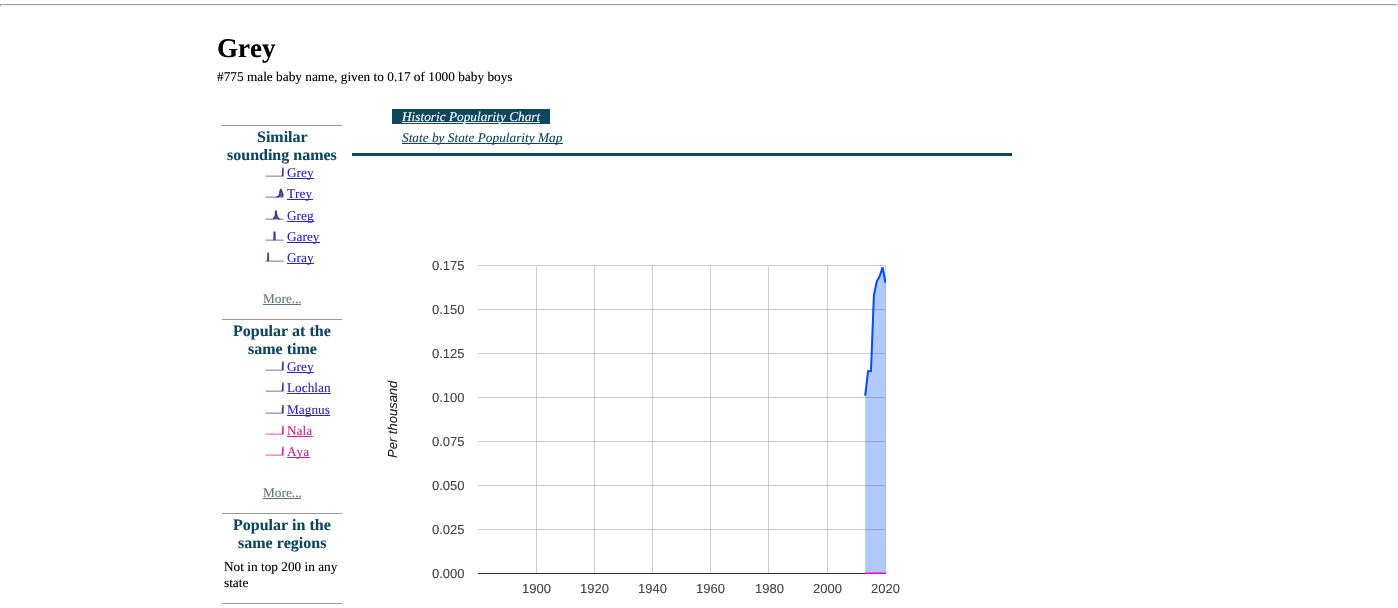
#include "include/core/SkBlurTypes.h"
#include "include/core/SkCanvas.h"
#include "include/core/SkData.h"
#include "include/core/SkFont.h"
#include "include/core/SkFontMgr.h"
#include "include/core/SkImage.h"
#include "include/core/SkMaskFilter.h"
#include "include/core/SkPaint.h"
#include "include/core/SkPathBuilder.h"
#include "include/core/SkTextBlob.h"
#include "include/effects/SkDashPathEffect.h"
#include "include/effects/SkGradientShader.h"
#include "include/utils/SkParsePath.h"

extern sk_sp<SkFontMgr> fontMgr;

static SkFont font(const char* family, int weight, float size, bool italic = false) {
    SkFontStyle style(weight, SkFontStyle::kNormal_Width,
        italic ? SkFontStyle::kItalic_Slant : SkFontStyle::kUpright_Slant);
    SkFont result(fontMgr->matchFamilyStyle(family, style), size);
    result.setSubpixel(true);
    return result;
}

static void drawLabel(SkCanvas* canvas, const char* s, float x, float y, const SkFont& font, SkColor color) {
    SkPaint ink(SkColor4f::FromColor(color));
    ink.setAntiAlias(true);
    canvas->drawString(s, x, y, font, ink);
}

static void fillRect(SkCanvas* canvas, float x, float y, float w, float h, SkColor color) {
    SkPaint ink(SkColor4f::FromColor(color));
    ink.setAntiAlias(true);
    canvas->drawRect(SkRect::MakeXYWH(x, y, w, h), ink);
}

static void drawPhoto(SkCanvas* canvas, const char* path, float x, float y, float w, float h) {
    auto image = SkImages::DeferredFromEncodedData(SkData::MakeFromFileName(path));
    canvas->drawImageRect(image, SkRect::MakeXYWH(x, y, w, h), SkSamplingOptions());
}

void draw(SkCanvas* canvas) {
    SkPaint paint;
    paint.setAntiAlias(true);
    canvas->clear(0xFFFFFFFF);
    fillRect(canvas, 0, 4, 1398, 1, 0xFF9F9F9F);
    fillRect(canvas, 1397, 4, 1, 2, 0xFFEEEEEE);
    fillRect(canvas, 0, 5, 1398, 1, 0xFFEEEEEE);
    fillRect(canvas, 0, 4, 1, 2, 0xFF9F9F9F);
    SkFont font1 = font("Liberation Serif", 700, 27);
    drawLabel(canvas, "Grey", 217, 57, font1, 0xFF000000);
    SkFont font2 = font("Liberation Serif", 400, 13.3f);
    drawLabel(canvas, "#775 male baby name, given to 0.17 of 1000 baby boys", 217, 81, font2, 0xFF000000);
    fillRect(canvas, 222, 125, 120, 1, 0xFF8F9E8B);
    SkFont font3 = font("Liberation Serif", 700, 16);
    drawLabel(canvas, "Similar", 257, 142, font3, 0xFF0E465C);
    drawLabel(canvas, "sounding names", 227, 160, font3, 0xFF0E465C);
    drawPhoto(canvas, "assets/img1.png", 265, 167, 19, 10);
    fillRect(canvas, 287, 178, 27, 1, 0xFF2C26BA);
    drawLabel(canvas, "Grey", 287, 177, font2, 0xFF2C26BA);
    drawPhoto(canvas, "assets/img2.png", 265, 188, 19, 10);
    fillRect(canvas, 287, 199, 26, 1, 0xFF2C26BA);
    drawLabel(canvas, "Trey", 287, 198, font2, 0xFF2C26BA);
    drawPhoto(canvas, "assets/img3.png", 265, 210, 19, 10);
    fillRect(canvas, 287, 221, 27, 1, 0xFF2C26BA);
    drawLabel(canvas, "Greg", 287, 220, font2, 0xFF2C26BA);
    drawPhoto(canvas, "assets/img4.png", 265, 231, 19, 10);
    fillRect(canvas, 287, 242, 33, 1, 0xFF2C26BA);
    drawLabel(canvas, "Garey", 287, 241, font2, 0xFF2C26BA);
    drawPhoto(canvas, "assets/img5.png", 265, 252, 19, 10);
    fillRect(canvas, 287, 263, 27, 1, 0xFF2C26BA);
    drawLabel(canvas, "Gray", 287, 262, font2, 0xFF2C26BA);
    drawLabel(canvas, "More...", 263, 303, font2, 0xFF5B7876);
    fillRect(canvas, 263, 304, 38, 1, 0xFF5B7876);
    fillRect(canvas, 222, 319, 120, 1, 0xFF8F9E8B);
    drawLabel(canvas, "Popular at the", 233, 336, font3, 0xFF0E465C);
    drawLabel(canvas, "same time", 248, 354, font3, 0xFF0E465C);
    drawPhoto(canvas, "assets/img1.png", 265, 361, 19, 10);
    fillRect(canvas, 287, 372, 27, 1, 0xFF2C26BA);
    drawLabel(canvas, "Grey", 287, 371, font2, 0xFF2C26BA);
    drawPhoto(canvas, "assets/img6.png", 265, 382, 19, 10);
    drawLabel(canvas, "Lochlan", 287, 392, font2, 0xFF2C26BA);
    fillRect(canvas, 287, 393, 44, 1, 0xFF2C26BA);
    drawPhoto(canvas, "assets/img7.png", 265, 404, 19, 10);
    fillRect(canvas, 287, 415, 43, 1, 0xFF2C26BA);
    drawLabel(canvas, "Magnus", 287, 414, font2, 0xFF2C26BA);
    drawPhoto(canvas, "assets/img8.png", 265, 425, 19, 10);
    drawLabel(canvas, "Nala", 287, 435, font2, 0xFFBA2888);
    fillRect(canvas, 287, 436, 26, 1, 0xFFBA2888);
    drawPhoto(canvas, "assets/img9.png", 265, 446, 19, 10);
    fillRect(canvas, 287, 457, 23, 1, 0xFFBA2888);
    drawLabel(canvas, "Aya", 287, 456, font2, 0xFFBA2888);
    drawLabel(canvas, "More...", 263, 497, font2, 0xFF5B7876);
    fillRect(canvas, 263, 498, 38, 1, 0xFF5B7876);
    fillRect(canvas, 222, 513, 120, 1, 0xFF8F9E8B);
    drawLabel(canvas, "Popular in the", 233, 530, font3, 0xFF0E465C);
    drawLabel(canvas, "same regions", 238, 548, font3, 0xFF0E465C);
    drawLabel(canvas, "Not in top 200 in any", 224, 571, font2, 0xFF000000);
    drawLabel(canvas, "state", 224, 587, font2, 0xFF000000);
    fillRect(canvas, 222, 603, 120, 1, 0xFF8F9E8B);
    fillRect(canvas, 352, 153, 660, 3, 0xFF0E465C);
    fillRect(canvas, 392, 109, 158, 15, 0xFF0E465C);
    fillRect(canvas, 402, 122, 138, 1, 0xFFFFFFFF);
    SkFont font4 = font("Liberation Serif", 400, 13.3f, true);
    drawLabel(canvas, "Historic Popularity Chart", 402, 121, font4, 0xFFFFFFFF);
    fillRect(canvas, 402, 143, 161, 1, 0xFF0E465C);
    drawLabel(canvas, "State by State Popularity Map", 402, 142, font4, 0xFF0E465C);
    SkFont font5 = font("Liberation Sans", 400, 13);
    drawLabel(canvas, "0.175", 432, 270, font5, 0xFF444444);
    drawPhoto(canvas, "assets/img10.png", 478, 265, 408, 309);
    drawLabel(canvas, "0.150", 432, 314, font5, 0xFF444444);
    drawLabel(canvas, "0.125", 432, 358, font5, 0xFF444444);
    SkFont font6 = font("Liberation Sans", 400, 13, true);
    canvas->save();
    canvas->rotate(-90, 397, 458);
    drawLabel(canvas, "Per thousand", 397, 458, font6, 0xFF222222);
    canvas->restore();
    drawLabel(canvas, "0.100", 432, 402, font5, 0xFF444444);
    drawLabel(canvas, "0.075", 432, 446, font5, 0xFF444444);
    drawLabel(canvas, "0.050", 432, 490, font5, 0xFF444444);
    drawLabel(canvas, "0.025", 432, 534, font5, 0xFF444444);
    drawLabel(canvas, "0.000", 432, 578, font5, 0xFF444444);
    drawLabel(canvas, "1900", 522, 593, font5, 0xFF444444);
    drawLabel(canvas, "1920", 580, 593, font5, 0xFF444444);
    drawLabel(canvas, "1940", 638, 593, font5, 0xFF444444);
    drawLabel(canvas, "1960", 696, 593, font5, 0xFF444444);
    drawLabel(canvas, "1980", 755, 593, font5, 0xFF444444);
    drawLabel(canvas, "2000", 813, 593, font5, 0xFF444444);
    drawLabel(canvas, "2020", 871, 593, font5, 0xFF444444);
}
